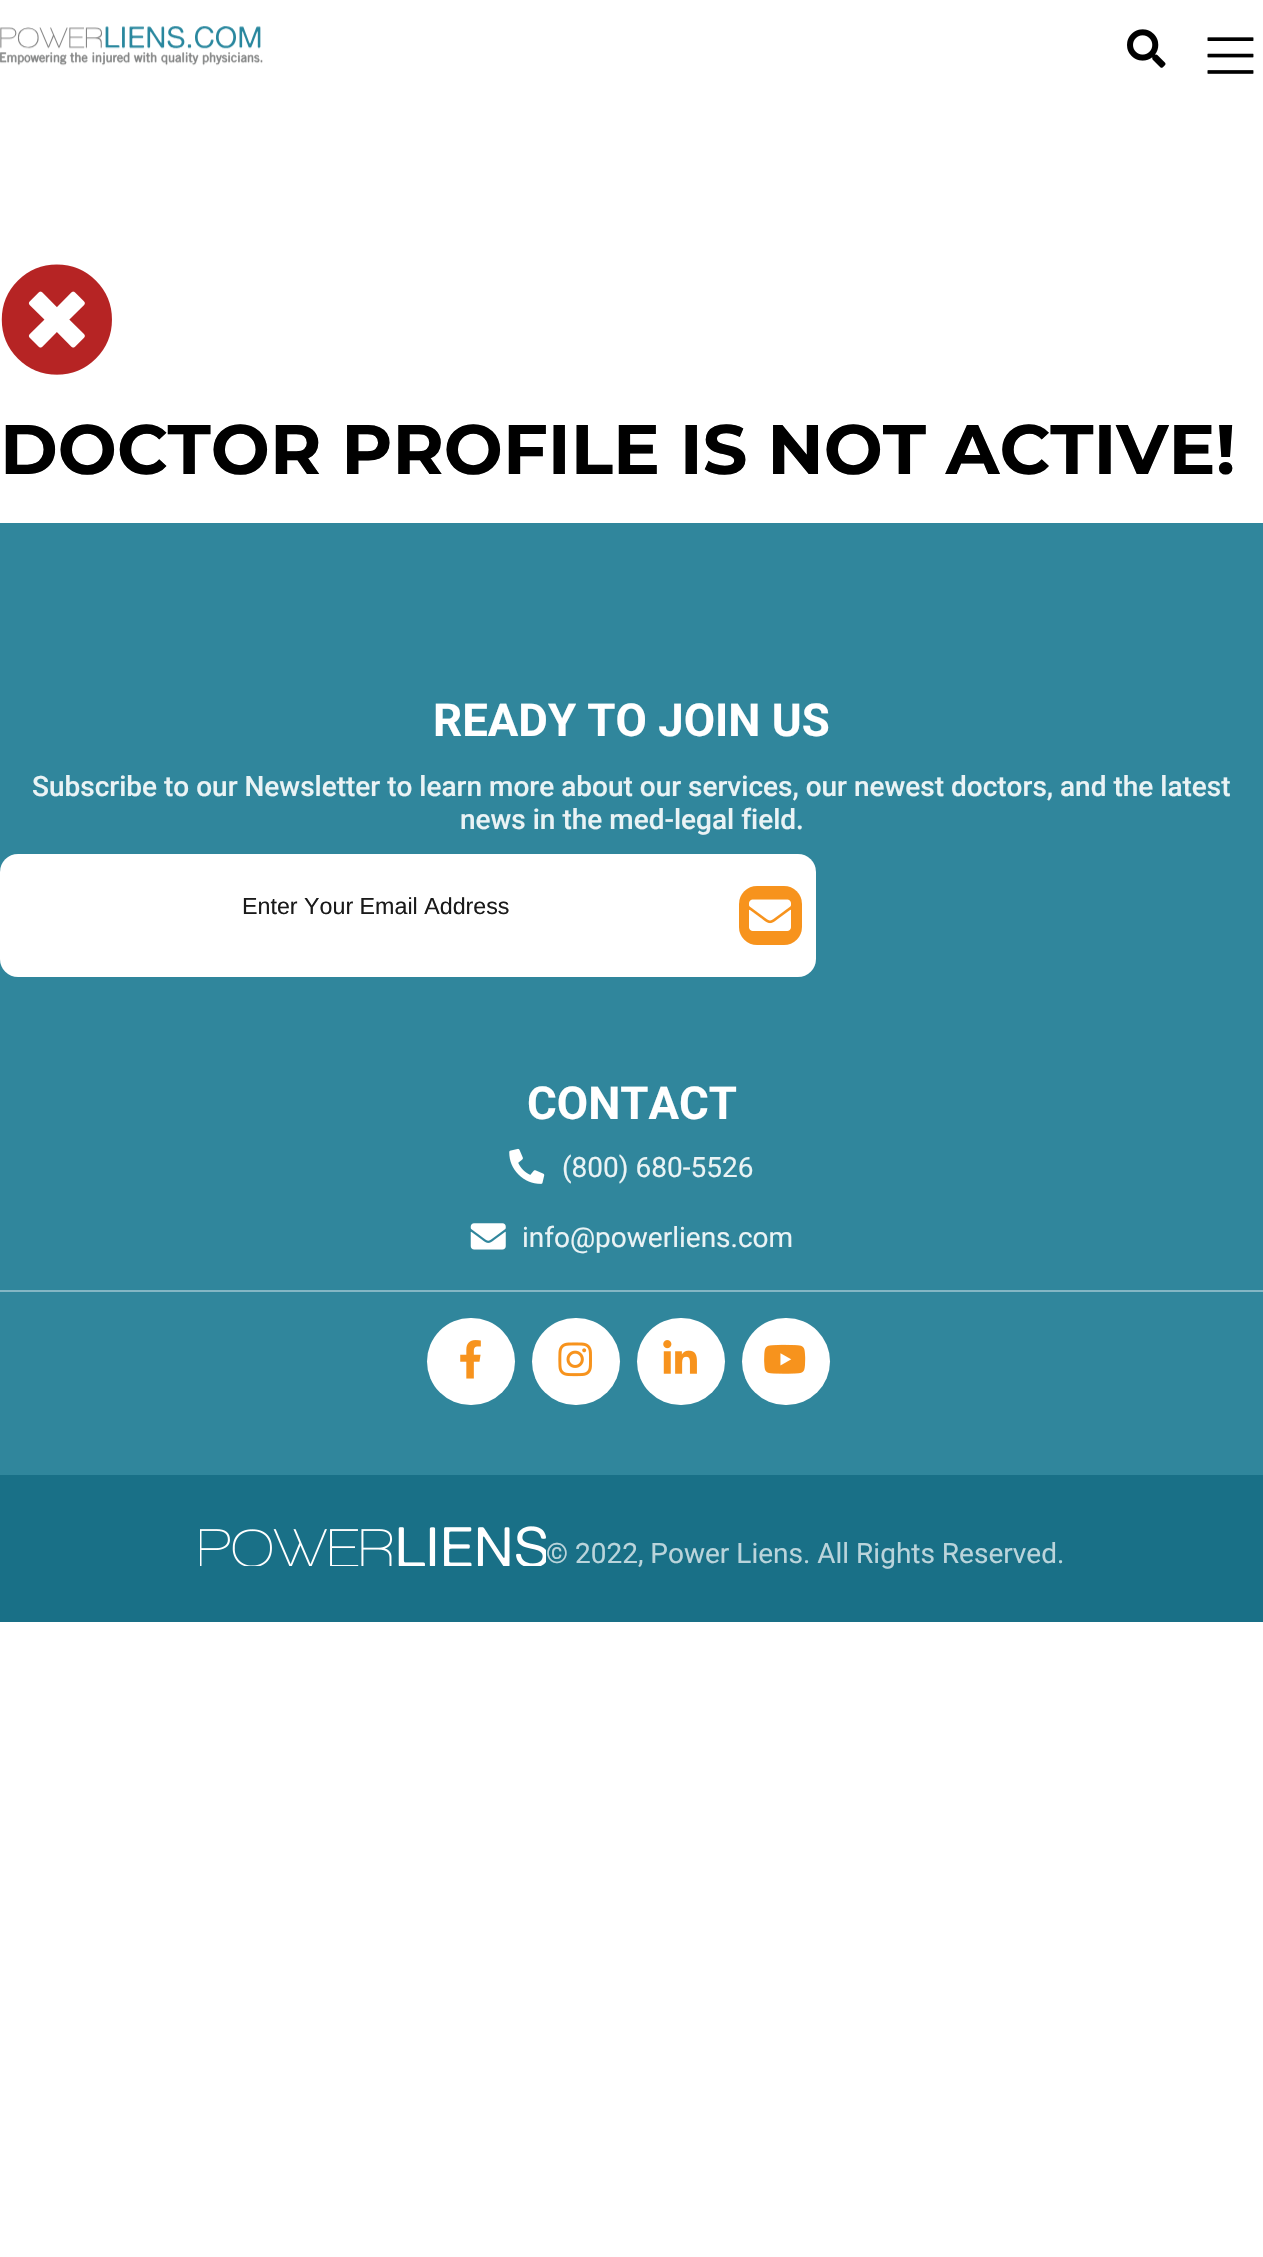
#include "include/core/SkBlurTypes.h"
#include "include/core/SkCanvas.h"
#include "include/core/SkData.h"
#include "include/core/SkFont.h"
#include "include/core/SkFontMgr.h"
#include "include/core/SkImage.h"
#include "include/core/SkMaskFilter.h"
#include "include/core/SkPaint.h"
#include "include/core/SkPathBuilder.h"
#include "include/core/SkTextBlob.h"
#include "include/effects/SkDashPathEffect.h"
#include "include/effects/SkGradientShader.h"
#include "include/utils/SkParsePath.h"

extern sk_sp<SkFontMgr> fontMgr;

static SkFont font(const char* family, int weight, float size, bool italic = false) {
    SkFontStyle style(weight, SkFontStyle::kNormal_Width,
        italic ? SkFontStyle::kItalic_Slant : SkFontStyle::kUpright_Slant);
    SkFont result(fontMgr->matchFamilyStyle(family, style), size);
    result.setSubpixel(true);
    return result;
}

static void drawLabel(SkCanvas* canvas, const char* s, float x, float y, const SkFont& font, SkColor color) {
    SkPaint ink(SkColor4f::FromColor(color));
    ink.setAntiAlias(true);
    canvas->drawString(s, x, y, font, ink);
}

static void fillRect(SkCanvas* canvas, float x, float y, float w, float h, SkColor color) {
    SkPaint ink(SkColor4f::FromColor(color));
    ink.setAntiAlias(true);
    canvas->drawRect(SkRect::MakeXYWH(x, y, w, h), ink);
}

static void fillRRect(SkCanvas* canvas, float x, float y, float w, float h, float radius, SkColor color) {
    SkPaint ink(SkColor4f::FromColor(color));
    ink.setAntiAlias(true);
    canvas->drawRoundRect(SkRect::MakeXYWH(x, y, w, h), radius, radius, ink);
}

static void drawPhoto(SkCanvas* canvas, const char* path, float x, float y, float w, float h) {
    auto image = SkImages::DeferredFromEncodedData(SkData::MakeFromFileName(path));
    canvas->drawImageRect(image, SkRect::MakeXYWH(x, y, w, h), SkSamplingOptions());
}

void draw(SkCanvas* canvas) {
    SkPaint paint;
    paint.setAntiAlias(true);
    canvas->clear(0xFFFFFFFF);
    drawPhoto(canvas, "assets/img1.png", 0, 26, 263, 40);
    drawPhoto(canvas, "assets/img2.png", 1127, 29, 39, 39);
    drawPhoto(canvas, "assets/img3.png", 1207, 37, 47, 37);
    drawPhoto(canvas, "assets/img4.png", 1, 264, 111, 111);
    SkFont font1 = font("Montserrat", 700, 70);
    drawLabel(canvas, "DOCTOR PROFILE IS NOT ACTIVE!", 0, 474, font1, 0xFF000000);
    fillRect(canvas, 0, 523, 1263, 952, 0xFF30869C);
    SkFont font2 = font("Roboto", 700, 45.5f);
    drawLabel(canvas, "READY TO JOIN US", 433, 736, font2, 0xFFFFFFFF);
    SkFont font3 = font("Roboto", 500, 28);
    drawLabel(canvas, "Subscribe to our Newsletter to learn more about our services, our newest doctors, and the latest", 32, 796, font3, 0xFFEAF3F5);
    drawLabel(canvas, "news in the med-legal field.", 460, 829, font3, 0xFFEAF3F5);
    fillRRect(canvas, 0, 854, 816, 123, 18, 0xFFFFFFFF);
    SkFont font4 = font("Liberation Sans", 400, 23.25f);
    drawLabel(canvas, "Enter Your Email Address", 242, 914, font4, 0xFF1A1A1A);
    fillRRect(canvas, 739, 886, 63, 59, 18, 0xFFF7931D);
    drawPhoto(canvas, "assets/img5.png", 749, 899, 42, 32);
    drawLabel(canvas, "CONTACT", 527, 1119, font2, 0xFFFFFFFF);
    drawPhoto(canvas, "assets/img6.png", 509, 1148, 36, 36);
    SkFont font5 = font("Roboto", 400, 28);
    drawLabel(canvas, "(800) 680-5526", 562, 1177, font5, 0xFFEAF3F5);
    drawPhoto(canvas, "assets/img7.png", 470, 1223, 36, 27);
    drawLabel(canvas, "info@powerliens.com", 522, 1247, font5, 0xFFEAF3F5);
    fillRect(canvas, 0, 1290, 1263, 2, 0xFF83B6C4);
    fillRRect(canvas, 427, 1318, 88, 87, 43.5f, 0xFFFFFFFF);
    drawPhoto(canvas, "assets/img8.png", 460, 1340, 21, 39);
    fillRRect(canvas, 532, 1318, 88, 87, 43.5f, 0xFFFFFFFF);
    drawPhoto(canvas, "assets/img9.png", 558, 1342, 34, 35);
    fillRRect(canvas, 637, 1318, 88, 87, 43.5f, 0xFFFFFFFF);
    drawPhoto(canvas, "assets/img10.png", 663, 1340, 34, 34);
    fillRRect(canvas, 742, 1318, 88, 87, 43.5f, 0xFFFFFFFF);
    drawPhoto(canvas, "assets/img11.png", 764, 1344, 42, 30);
    fillRect(canvas, 0, 1475, 1263, 147, 0xFF197087);
    drawPhoto(canvas, "assets/img12.png", 200, 1526, 346, 40);
    drawLabel(canvas, "© 2022, Power Liens. All Rights Reserved.", 546, 1563, font5, 0xFFBAD4DB);
}
